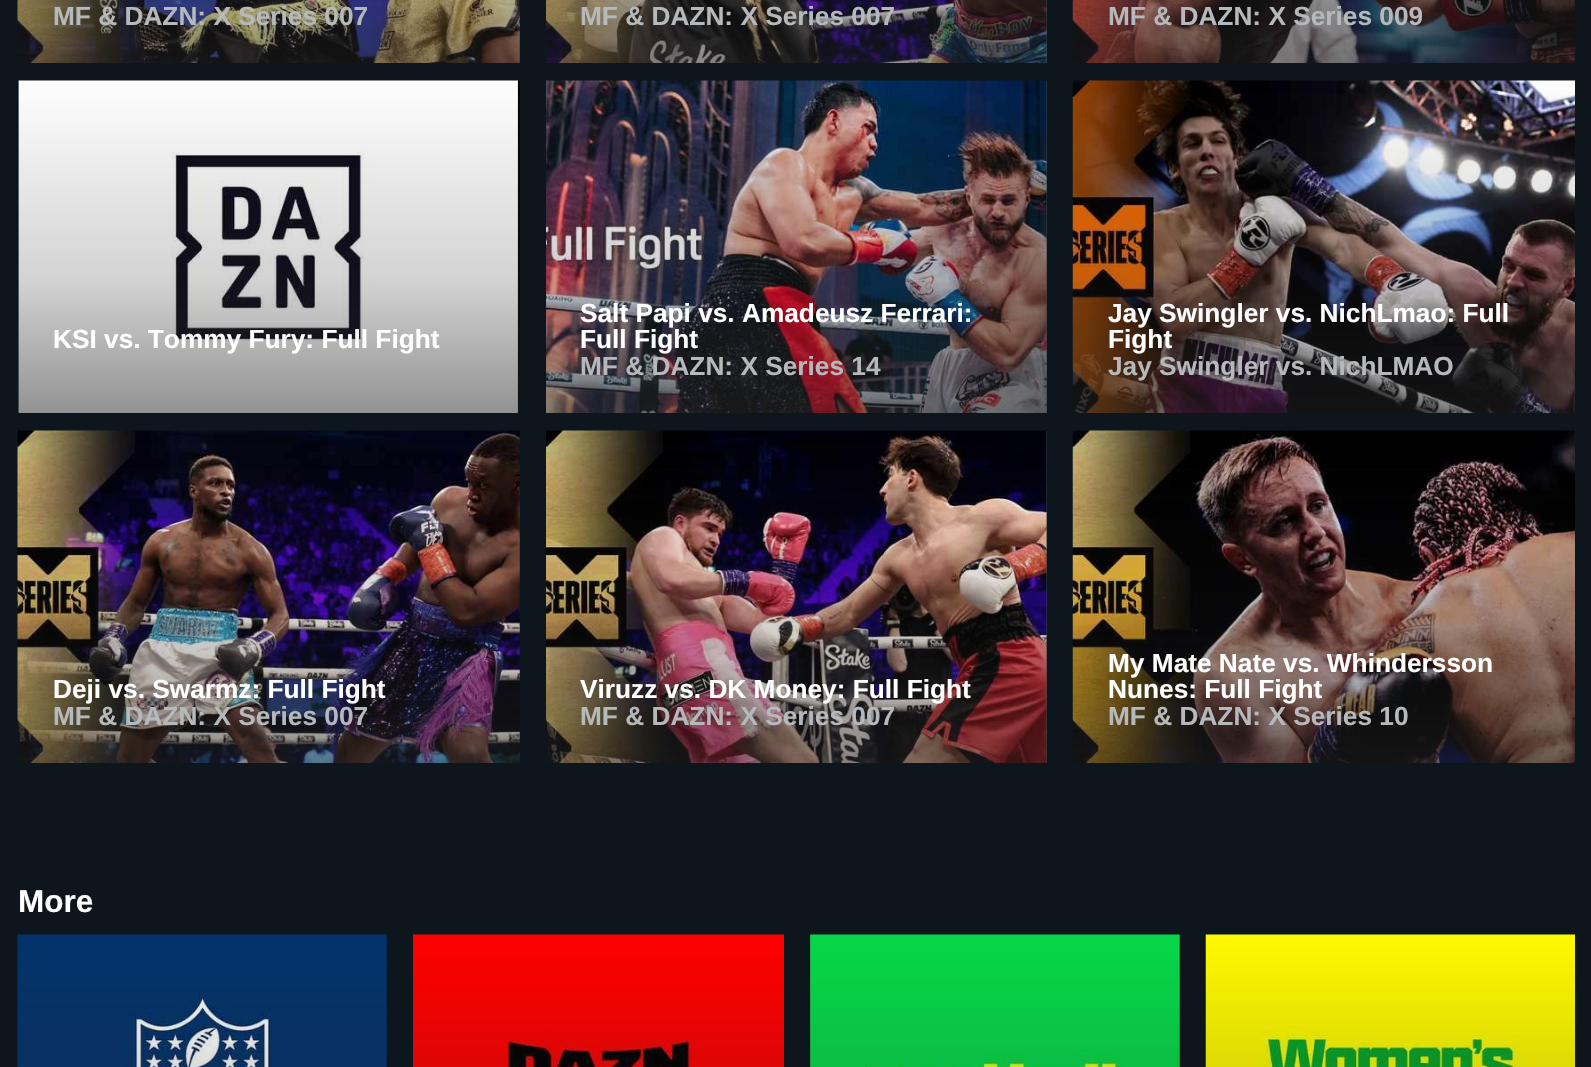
#include "include/core/SkBlurTypes.h"
#include "include/core/SkCanvas.h"
#include "include/core/SkData.h"
#include "include/core/SkFont.h"
#include "include/core/SkFontMgr.h"
#include "include/core/SkImage.h"
#include "include/core/SkMaskFilter.h"
#include "include/core/SkPaint.h"
#include "include/core/SkPathBuilder.h"
#include "include/core/SkTextBlob.h"
#include "include/effects/SkDashPathEffect.h"
#include "include/effects/SkGradientShader.h"
#include "include/utils/SkParsePath.h"

extern sk_sp<SkFontMgr> fontMgr;

static SkFont font(const char* family, int weight, float size, bool italic = false) {
    SkFontStyle style(weight, SkFontStyle::kNormal_Width,
        italic ? SkFontStyle::kItalic_Slant : SkFontStyle::kUpright_Slant);
    SkFont result(fontMgr->matchFamilyStyle(family, style), size);
    result.setSubpixel(true);
    return result;
}

static void drawLabel(SkCanvas* canvas, const char* s, float x, float y, const SkFont& font, SkColor color) {
    SkPaint ink(SkColor4f::FromColor(color));
    ink.setAntiAlias(true);
    canvas->drawString(s, x, y, font, ink);
}

static void fillRect(SkCanvas* canvas, float x, float y, float w, float h, SkColor color) {
    SkPaint ink(SkColor4f::FromColor(color));
    ink.setAntiAlias(true);
    canvas->drawRect(SkRect::MakeXYWH(x, y, w, h), ink);
}

static void drawPhoto(SkCanvas* canvas, const char* path, float x, float y, float w, float h) {
    auto image = SkImages::DeferredFromEncodedData(SkData::MakeFromFileName(path));
    canvas->drawImageRect(image, SkRect::MakeXYWH(x, y, w, h), SkSamplingOptions());
}

void draw(SkCanvas* canvas) {
    SkPaint paint;
    paint.setAntiAlias(true);
    canvas->clear(0xFF0C161C);
    drawPhoto(canvas, "assets/img1.png", 17, 0, 503, 63);
    SkFont font1 = font("Liberation Sans", 700, 26.25f);
    drawLabel(canvas, "MF & DAZN: X Series 007", 53, 25, font1, 0xFFB6B9BB);
    fillRect(canvas, 1046, 0, 1, 63, 0xFF3D454B);
    drawPhoto(canvas, "assets/img2.png", 546, 0, 501, 63);
    drawLabel(canvas, "MF & DAZN: X Series 007", 580, 25, font1, 0xFFB6B9BB);
    drawPhoto(canvas, "assets/img3.png", 1072, 0, 503, 63);
    drawLabel(canvas, "MF & DAZN: X Series 009", 1108, 25, font1, 0xFFB6B9BB);
    drawPhoto(canvas, "assets/img4.png", 17, 80, 503, 333);
    drawLabel(canvas, "KSI vs. Tommy Fury: Full Fight", 53, 348, font1, 0xFFFFFFFF);
    fillRect(canvas, 1046, 81, 1, 332, 0xFF3D454B);
    drawPhoto(canvas, "assets/img5.png", 546, 80, 501, 333);
    drawLabel(canvas, "Salt Papi vs. Amadeusz Ferrari:", 580, 322, font1, 0xFFFFFFFF);
    drawLabel(canvas, "Full Fight", 580, 348, font1, 0xFFFFFFFF);
    drawLabel(canvas, "MF & DAZN: X Series 14", 580, 375, font1, 0xFFB6B9BB);
    drawPhoto(canvas, "assets/img6.png", 1072, 80, 503, 333);
    drawLabel(canvas, "Jay Swingler vs. NichLmao: Full", 1108, 322, font1, 0xFFFFFFFF);
    drawLabel(canvas, "Fight", 1108, 348, font1, 0xFFFFFFFF);
    drawLabel(canvas, "Jay Swingler vs. NichLMAO", 1108, 375, font1, 0xFFB6B9BB);
    drawPhoto(canvas, "assets/img7.png", 17, 430, 503, 333);
    drawLabel(canvas, "Deji vs. Swarmz: Full Fight", 53, 698, font1, 0xFFFFFFFF);
    drawLabel(canvas, "MF & DAZN: X Series 007", 53, 725, font1, 0xFFB6B9BB);
    fillRect(canvas, 1046, 431, 1, 332, 0xFF3D454B);
    drawPhoto(canvas, "assets/img8.png", 546, 430, 501, 333);
    drawLabel(canvas, "Viruzz vs. DK Money: Full Fight", 580, 698, font1, 0xFFFFFFFF);
    drawLabel(canvas, "MF & DAZN: X Series 007", 580, 725, font1, 0xFFB6B9BB);
    drawPhoto(canvas, "assets/img9.png", 1072, 430, 503, 333);
    drawLabel(canvas, "My Mate Nate vs. Whindersson", 1108, 672, font1, 0xFFFFFFFF);
    drawLabel(canvas, "Nunes: Full Fight", 1108, 698, font1, 0xFFFFFFFF);
    drawLabel(canvas, "MF & DAZN: X Series 10", 1108, 725, font1, 0xFFB6B9BB);
    SkFont font2 = font("Liberation Sans", 700, 31.5f);
    drawLabel(canvas, "More", 18, 912, font2, 0xFFFFFFFF);
    drawPhoto(canvas, "assets/img10.png", 17, 934, 370, 133);
    drawPhoto(canvas, "assets/img11.png", 413, 934, 371, 133);
    fillRect(canvas, 810, 935, 370, 132, 0xFF3D454B);
    drawPhoto(canvas, "assets/img12.png", 810, 934, 370, 133);
    drawPhoto(canvas, "assets/img13.png", 1205, 934, 370, 133);
}
